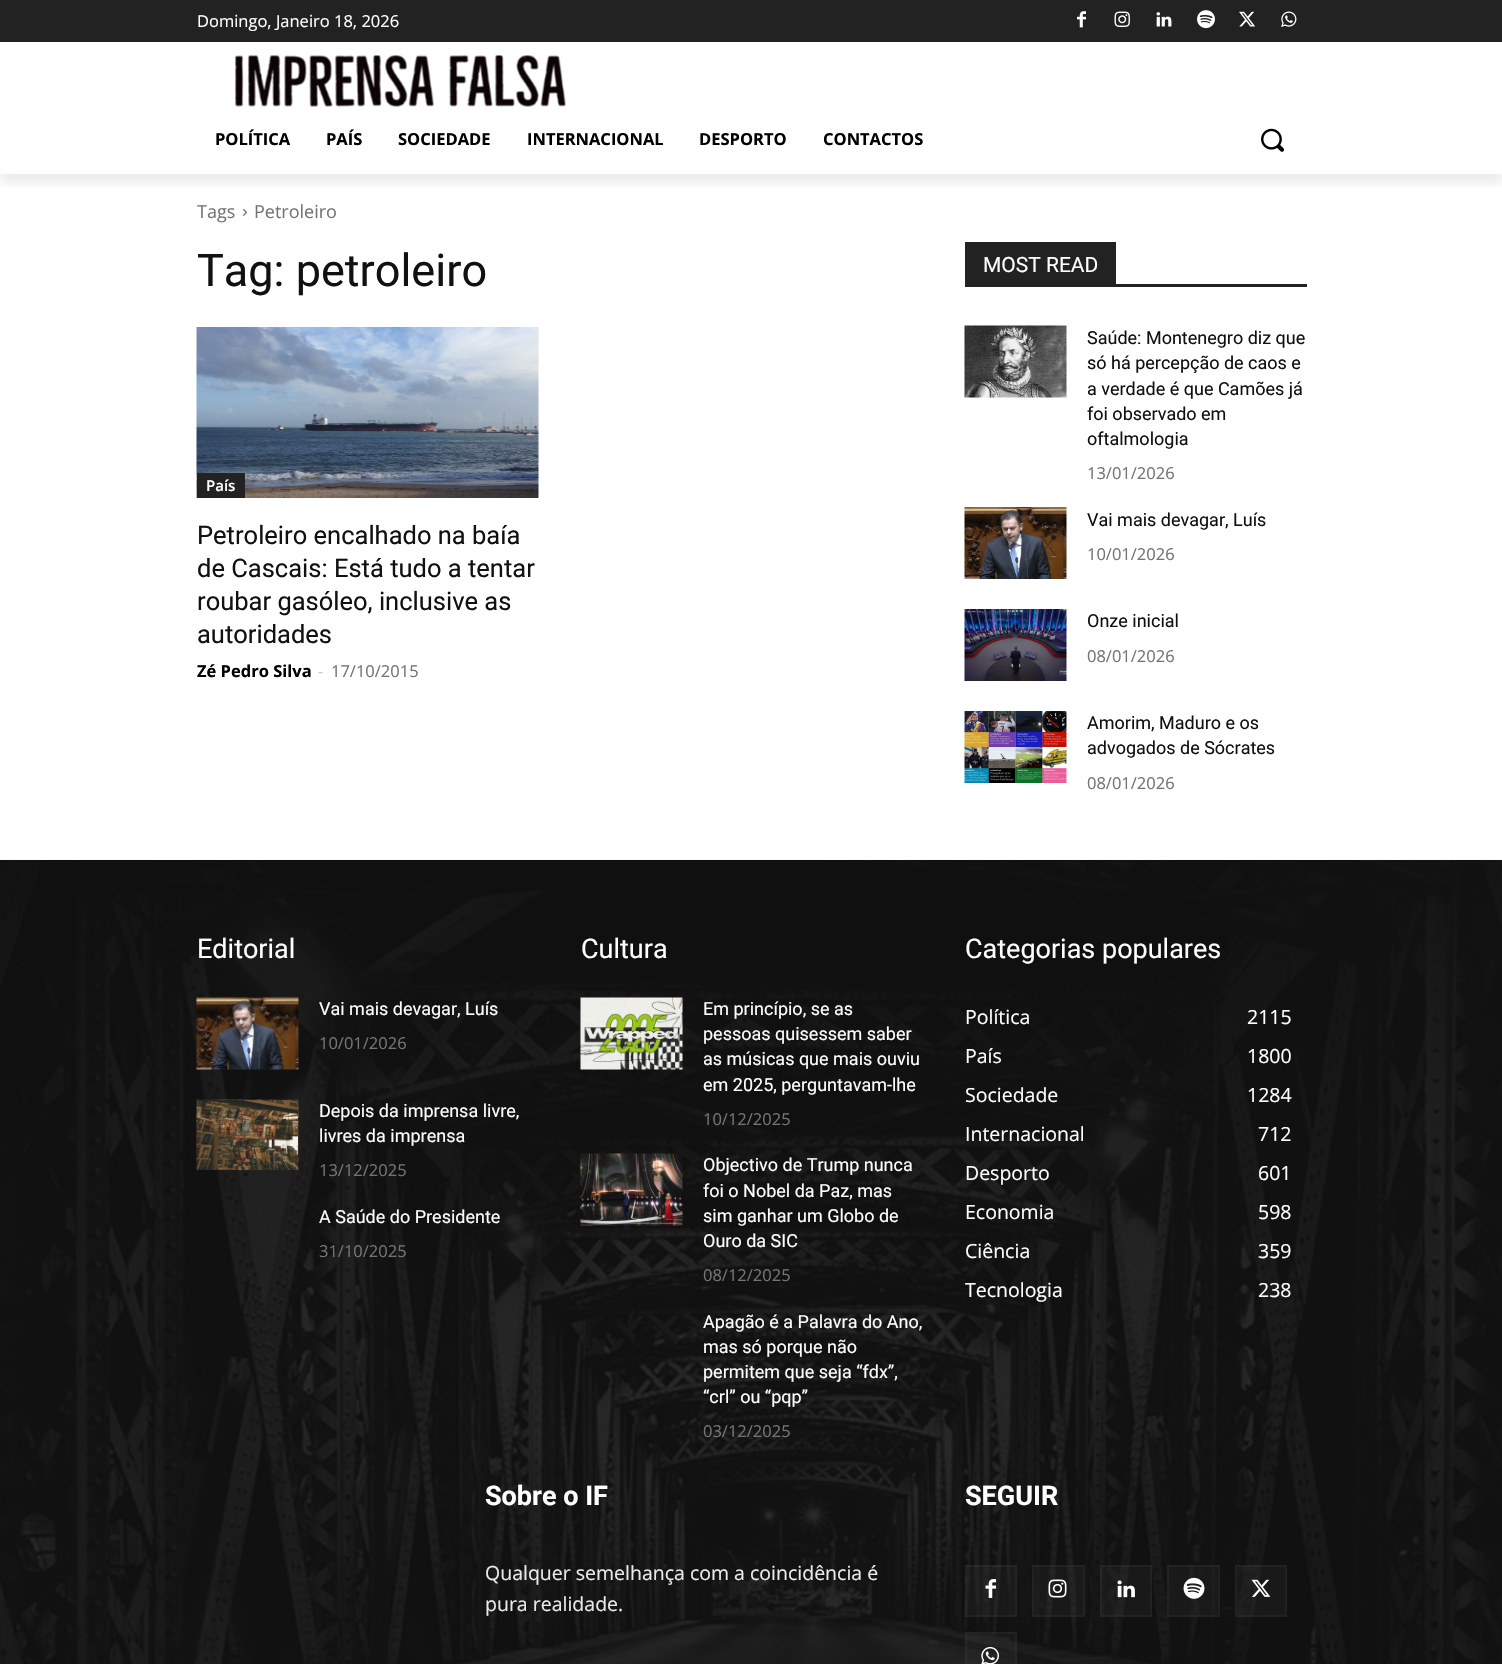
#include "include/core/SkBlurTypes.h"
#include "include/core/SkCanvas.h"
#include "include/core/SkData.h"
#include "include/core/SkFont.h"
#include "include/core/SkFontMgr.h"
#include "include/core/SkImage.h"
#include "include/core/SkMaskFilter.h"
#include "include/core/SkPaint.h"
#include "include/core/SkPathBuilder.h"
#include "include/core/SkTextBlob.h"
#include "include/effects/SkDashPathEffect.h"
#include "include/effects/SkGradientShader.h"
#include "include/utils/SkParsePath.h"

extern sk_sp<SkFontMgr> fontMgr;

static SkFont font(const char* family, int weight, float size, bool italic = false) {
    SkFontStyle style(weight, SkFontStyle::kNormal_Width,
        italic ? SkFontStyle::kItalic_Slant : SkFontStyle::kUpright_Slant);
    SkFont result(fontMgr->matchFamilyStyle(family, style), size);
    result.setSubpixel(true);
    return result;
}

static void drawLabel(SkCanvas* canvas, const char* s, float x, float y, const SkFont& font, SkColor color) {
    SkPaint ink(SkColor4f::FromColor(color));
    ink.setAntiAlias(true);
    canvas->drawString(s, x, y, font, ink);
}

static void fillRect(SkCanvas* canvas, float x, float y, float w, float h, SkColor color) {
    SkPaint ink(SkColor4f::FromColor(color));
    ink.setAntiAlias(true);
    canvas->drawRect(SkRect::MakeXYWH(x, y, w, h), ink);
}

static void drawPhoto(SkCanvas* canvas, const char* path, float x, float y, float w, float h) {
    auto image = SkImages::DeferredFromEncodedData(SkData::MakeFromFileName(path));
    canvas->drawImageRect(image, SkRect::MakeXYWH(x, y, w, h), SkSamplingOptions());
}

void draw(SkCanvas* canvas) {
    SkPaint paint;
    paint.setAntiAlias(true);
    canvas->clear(0xFFFFFFFF);
    fillRect(canvas, 0, 0, 1502, 42, 0xFF222222);
    drawPhoto(canvas, "assets/img1.png", 1077, 11, 9, 17);
    drawPhoto(canvas, "assets/img2.png", 1114, 11, 16, 16);
    drawPhoto(canvas, "assets/img3.png", 1156, 12, 16, 15);
    drawPhoto(canvas, "assets/img4.png", 1197, 10, 18, 19);
    drawPhoto(canvas, "assets/img5.png", 1239, 11, 16, 16);
    drawPhoto(canvas, "assets/img6.png", 1281, 11, 16, 16);
    drawPhoto(canvas, "assets/img7.png", 235, 55, 331, 52);
    canvas->save();
    canvas->clipRect(SkRect::MakeXYWH(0, 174, 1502, 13));
    paint.setColor(0x14000000);
    paint.setMaskFilter(SkMaskFilter::MakeBlur(kNormal_SkBlurStyle, 6));
    canvas->drawRect(SkRect::MakeXYWH(0, 9, 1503, 174), paint);
    paint.setMaskFilter(nullptr);
    canvas->restore();
    SkFont font1 = font("Open Sans", 400, 16.5f);
    drawLabel(canvas, "Domingo, Janeiro 18, 2026", 197, 27, font1, 0xFFFFFFFF);
    SkFont font2 = font("Open Sans", 700, 16.5f);
    drawLabel(canvas, "POLÍTICA", 215, 145, font2, 0xFF000000);
    drawLabel(canvas, "PAÍS", 326, 145, font2, 0xFF000000);
    drawLabel(canvas, "SOCIEDADE", 398, 145, font2, 0xFF000000);
    drawLabel(canvas, "INTERNACIONAL", 527, 145, font2, 0xFF000000);
    drawLabel(canvas, "DESPORTO", 699, 145, font2, 0xFF000000);
    drawLabel(canvas, "CONTACTOS", 823, 145, font2, 0xFF000000);
    drawPhoto(canvas, "assets/img8.png", 1261, 128, 23, 24);
    SkFont font3 = font("Open Sans", 400, 18);
    drawLabel(canvas, "Tags", 197, 218, font3, 0xFF747474);
    drawPhoto(canvas, "assets/img9.png", 243, 208, 4, 8);
    drawLabel(canvas, "Petroleiro", 254, 218, font3, 0xFF747474);
    SkFont font4 = font("Roboto", 400, 45);
    drawLabel(canvas, "Tag: petroleiro", 197, 286, font4, 0xFF111111);
    drawPhoto(canvas, "assets/img10.png", 196, 327, 343, 171);
    fillRect(canvas, 197, 473, 48, 25, 0xFF222222);
    SkFont font5 = font("Open Sans", 600, 15);
    drawLabel(canvas, "País", 206, 491, font5, 0xFFFFFFFF);
    SkFont font6 = font("Roboto", 400, 25.5f);
    drawLabel(canvas, "Petroleiro encalhado na baía", 197, 544, font6, 0xFF111111);
    drawLabel(canvas, "de Cascais: Está tudo a tentar", 197, 577, font6, 0xFF111111);
    drawLabel(canvas, "roubar gasóleo, inclusive as", 197, 610, font6, 0xFF111111);
    drawLabel(canvas, "autoridades", 197, 643, font6, 0xFF111111);
    drawLabel(canvas, "Zé Pedro Silva", 197, 677, font2, 0xFF000000);
    drawLabel(canvas, "-", 318, 677, font1, 0xFFCCCCCC);
    drawLabel(canvas, "17/10/2015", 331, 677, font1, 0xFF747474);
    fillRect(canvas, 965, 284, 342, 3, 0xFF222222);
    fillRect(canvas, 965, 242, 151, 42, 0xFF222222);
    SkFont font7 = font("Roboto", 400, 21);
    drawLabel(canvas, "MOST READ", 983, 272, font7, 0xFFFFFFFF);
    drawPhoto(canvas, "assets/img11.png", 964, 325, 103, 73);
    SkFont font8 = font("Roboto", 400, 18);
    drawLabel(canvas, "Saúde: Montenegro diz que", 1087, 344, font8, 0xFF111111);
    drawLabel(canvas, "só há percepção de caos e", 1087, 369, font8, 0xFF111111);
    drawLabel(canvas, "a verdade é que Camões já", 1087, 395, font8, 0xFF111111);
    drawLabel(canvas, "foi observado em", 1087, 420, font8, 0xFF111111);
    drawLabel(canvas, "oftalmologia", 1087, 445, font8, 0xFF111111);
    drawLabel(canvas, "13/01/2026", 1087, 479, font1, 0xFF747474);
    drawPhoto(canvas, "assets/img12.png", 964, 507, 103, 72);
    drawLabel(canvas, "Vai mais devagar, Luís", 1087, 526, font8, 0xFF111111);
    drawLabel(canvas, "10/01/2026", 1087, 560, font1, 0xFF747474);
    drawPhoto(canvas, "assets/img13.png", 964, 609, 103, 72);
    drawLabel(canvas, "Onze inicial", 1087, 627, font8, 0xFF111111);
    drawLabel(canvas, "08/01/2026", 1087, 662, font1, 0xFF747474);
    drawPhoto(canvas, "assets/img14.png", 964, 711, 103, 72);
    drawLabel(canvas, "Amorim, Maduro e os", 1087, 729, font8, 0xFF111111);
    drawLabel(canvas, "advogados de Sócrates", 1087, 754, font8, 0xFF111111);
    drawLabel(canvas, "08/01/2026", 1087, 789, font1, 0xFF747474);
    fillRect(canvas, 0, 860, 1502, 804, 0xFF111111);
    drawPhoto(canvas, "assets/img15.png", 0, 859, 1502, 805);
    SkFont font9 = font("Roboto", 400, 27);
    drawLabel(canvas, "Editorial", 197, 958, font9, 0xFFFFFFFF);
    drawPhoto(canvas, "assets/img16.png", 196, 997, 103, 73);
    drawLabel(canvas, "Vai mais devagar, Luís", 319, 1015, font8, 0xFFFFFFFF);
    drawLabel(canvas, "10/01/2026", 319, 1049, font1, 0xFF747474);
    drawPhoto(canvas, "assets/img17.png", 196, 1099, 103, 71);
    drawLabel(canvas, "Depois da imprensa livre,", 319, 1117, font8, 0xFFFFFFFF);
    drawLabel(canvas, "livres da imprensa", 319, 1142, font8, 0xFFFFFFFF);
    drawLabel(canvas, "13/12/2025", 319, 1176, font1, 0xFF747474);
    drawLabel(canvas, "A Saúde do Presidente", 319, 1223, font8, 0xFFFFFFFF);
    drawLabel(canvas, "31/10/2025", 319, 1257, font1, 0xFF747474);
    drawLabel(canvas, "Cultura", 581, 958, font9, 0xFFFFFFFF);
    drawPhoto(canvas, "assets/img18.png", 580, 997, 103, 73);
    drawLabel(canvas, "Em princípio, se as", 703, 1015, font8, 0xFFFFFFFF);
    drawLabel(canvas, "pessoas quisessem saber", 703, 1040, font8, 0xFFFFFFFF);
    drawLabel(canvas, "as músicas que mais ouviu", 703, 1065, font8, 0xFFFFFFFF);
    drawLabel(canvas, "em 2025, perguntavam-lhe", 703, 1091, font8, 0xFFFFFFFF);
    drawLabel(canvas, "10/12/2025", 703, 1125, font1, 0xFF747474);
    drawPhoto(canvas, "assets/img19.png", 580, 1153, 103, 73);
    drawLabel(canvas, "Objectivo de Trump nunca", 703, 1171, font8, 0xFFFFFFFF);
    drawLabel(canvas, "foi o Nobel da Paz, mas", 703, 1197, font8, 0xFFFFFFFF);
    drawLabel(canvas, "sim ganhar um Globo de", 703, 1222, font8, 0xFFFFFFFF);
    drawLabel(canvas, "Ouro da SIC", 703, 1247, font8, 0xFFFFFFFF);
    drawLabel(canvas, "08/12/2025", 703, 1281, font1, 0xFF747474);
    drawLabel(canvas, "Apagão é a Palavra do Ano,", 703, 1328, font8, 0xFFFFFFFF);
    drawLabel(canvas, "mas só porque não", 703, 1353, font8, 0xFFFFFFFF);
    drawLabel(canvas, "permitem que seja “fdx”,", 703, 1378, font8, 0xFFFFFFFF);
    drawLabel(canvas, "“crl” ou “pqp”", 703, 1403, font8, 0xFFFFFFFF);
    drawLabel(canvas, "03/12/2025", 703, 1437, font1, 0xFF747474);
    drawLabel(canvas, "Categorias populares", 965, 958, font9, 0xFFFFFFFF);
    SkFont font10 = font("Open Sans", 400, 19.5f);
    drawLabel(canvas, "Política", 965, 1024, font10, 0xFFFFFFFF);
    drawLabel(canvas, "2115", 1247, 1024, font10, 0xFFFFFFFF);
    drawLabel(canvas, "País", 965, 1063, font10, 0xFFFFFFFF);
    drawLabel(canvas, "1800", 1247, 1063, font10, 0xFFFFFFFF);
    drawLabel(canvas, "Sociedade", 965, 1102, font10, 0xFFFFFFFF);
    drawLabel(canvas, "1284", 1247, 1102, font10, 0xFFFFFFFF);
    drawLabel(canvas, "Internacional", 965, 1141, font10, 0xFFFFFFFF);
    drawLabel(canvas, "712", 1258, 1141, font10, 0xFFFFFFFF);
    drawLabel(canvas, "Desporto", 965, 1180, font10, 0xFFFFFFFF);
    drawLabel(canvas, "601", 1258, 1180, font10, 0xFFFFFFFF);
    drawLabel(canvas, "Economia", 965, 1219, font10, 0xFFFFFFFF);
    drawLabel(canvas, "598", 1258, 1219, font10, 0xFFFFFFFF);
    drawLabel(canvas, "Ciência", 965, 1258, font10, 0xFFFFFFFF);
    drawLabel(canvas, "359", 1258, 1258, font10, 0xFFFFFFFF);
    drawLabel(canvas, "Tecnologia", 965, 1297, font10, 0xFFFFFFFF);
    drawLabel(canvas, "238", 1258, 1297, font10, 0xFFFFFFFF);
    SkFont font11 = font("Roboto", 700, 27);
    drawLabel(canvas, "Sobre o IF", 485, 1505, font11, 0xFFFFFFFF);
    drawLabel(canvas, "Qualquer semelhança com a coincidência é", 485, 1580, font10, 0xFFEAEAEA);
    drawLabel(canvas, "pura realidade.", 485, 1611, font10, 0xFFEAEAEA);
    drawLabel(canvas, "SEGUIR", 965, 1505, font11, 0xFFFFFFFF);
    fillRect(canvas, 965, 1565, 52, 52, 0x08FFFFFF);
    paint.setStroke(true);
    paint.setStrokeWidth(2);
    paint.setColor(0x08FFFFFF);
    canvas->drawRect(SkRect::MakeXYWH(966, 1566, 50, 50), paint);
    drawPhoto(canvas, "assets/img20.png", 985, 1579, 11, 19);
    fillRect(canvas, 1032, 1565, 53, 52, 0x08FFFFFF);
    canvas->drawRect(SkRect::MakeXYWH(1033, 1566, 51, 50), paint);
    drawPhoto(canvas, "assets/img21.png", 1048, 1579, 19, 19);
    fillRect(canvas, 1100, 1565, 52, 52, 0x08FFFFFF);
    canvas->drawRect(SkRect::MakeXYWH(1101, 1566, 50, 50), paint);
    drawPhoto(canvas, "assets/img22.png", 1117, 1580, 18, 18);
    fillRect(canvas, 1167, 1565, 53, 52, 0x08FFFFFF);
    canvas->drawRect(SkRect::MakeXYWH(1168, 1566, 51, 50), paint);
    drawPhoto(canvas, "assets/img23.png", 1183, 1577, 22, 22);
    fillRect(canvas, 1235, 1565, 52, 52, 0x08FFFFFF);
    canvas->drawRect(SkRect::MakeXYWH(1236, 1566, 50, 50), paint);
    drawPhoto(canvas, "assets/img24.png", 1251, 1579, 20, 18);
    fillRect(canvas, 965, 1632, 52, 32, 0x08FFFFFF);
    canvas->drawRect(SkRect::MakeXYWH(966, 1633, 50, 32), paint);
    drawPhoto(canvas, "assets/img25.png", 981, 1646, 18, 18);
}
